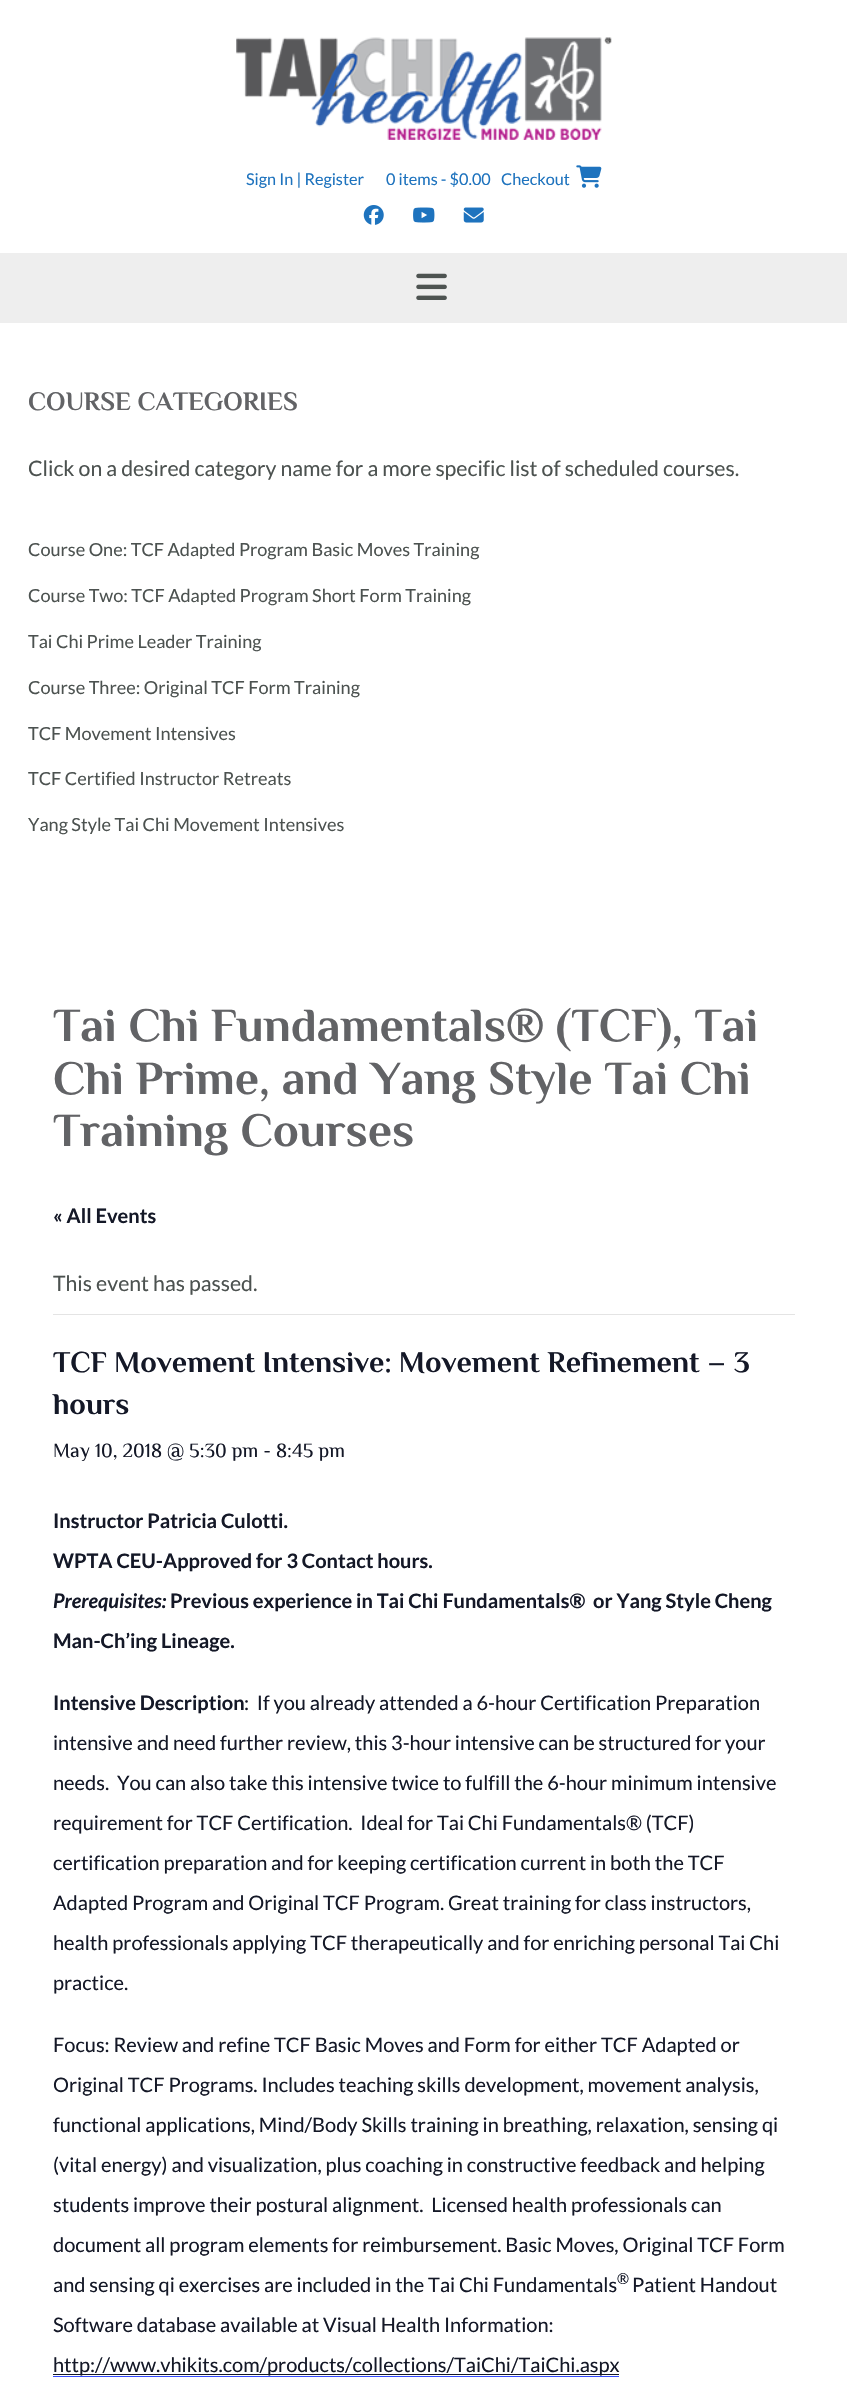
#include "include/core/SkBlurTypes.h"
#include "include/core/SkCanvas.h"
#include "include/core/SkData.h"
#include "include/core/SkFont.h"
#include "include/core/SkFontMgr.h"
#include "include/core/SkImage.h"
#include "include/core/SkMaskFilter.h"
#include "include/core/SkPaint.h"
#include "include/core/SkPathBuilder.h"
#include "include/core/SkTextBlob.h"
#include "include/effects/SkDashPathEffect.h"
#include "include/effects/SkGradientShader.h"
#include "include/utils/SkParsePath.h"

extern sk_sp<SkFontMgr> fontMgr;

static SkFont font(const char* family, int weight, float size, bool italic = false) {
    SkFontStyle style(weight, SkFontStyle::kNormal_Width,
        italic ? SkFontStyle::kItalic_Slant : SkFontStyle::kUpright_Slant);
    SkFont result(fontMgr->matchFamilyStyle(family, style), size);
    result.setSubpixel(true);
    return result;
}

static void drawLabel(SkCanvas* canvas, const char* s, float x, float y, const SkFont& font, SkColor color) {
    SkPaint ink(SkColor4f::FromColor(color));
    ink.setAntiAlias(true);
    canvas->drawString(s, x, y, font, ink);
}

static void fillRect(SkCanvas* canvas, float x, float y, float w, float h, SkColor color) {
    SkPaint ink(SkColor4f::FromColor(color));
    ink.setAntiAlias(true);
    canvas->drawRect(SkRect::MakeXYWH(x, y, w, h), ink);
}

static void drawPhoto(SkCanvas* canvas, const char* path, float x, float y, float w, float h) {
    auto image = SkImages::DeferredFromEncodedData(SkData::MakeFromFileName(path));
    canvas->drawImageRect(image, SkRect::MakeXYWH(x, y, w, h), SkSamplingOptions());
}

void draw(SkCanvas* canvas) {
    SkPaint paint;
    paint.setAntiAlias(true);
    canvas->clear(0xFFFFFFFF);
    drawPhoto(canvas, "assets/img1.png", 236, 37, 376, 103);
    SkFont font1 = font("Lato", 400, 16.25f);
    drawLabel(canvas, "Sign In | Register", 246, 185, font1, 0xFF1E73BE);
    drawLabel(canvas, "0 items - $0.00", 386, 185, font1, 0xFF1E73BE);
    drawLabel(canvas, "Checkout", 501, 185, font1, 0xFF1E73BE);
    drawPhoto(canvas, "assets/img2.png", 576, 165, 26, 23);
    drawPhoto(canvas, "assets/img3.png", 363, 205, 21, 20);
    drawPhoto(canvas, "assets/img4.png", 413, 207, 22, 16);
    drawPhoto(canvas, "assets/img5.png", 463, 207, 21, 16);
    fillRect(canvas, 0, 253, 847, 70, 0xFFEEEEEE);
    drawPhoto(canvas, "assets/img6.png", 416, 273, 31, 27);
    SkFont font2 = font("Philosopher", 700, 26.5f);
    drawLabel(canvas, "COURSE CATEGORIES", 28, 410, font2, 0xFF626366);
    SkFont font3 = font("Lato", 400, 21.25f);
    drawLabel(canvas, "Click on a desired category name for a more specific list of scheduled courses.", 28, 476, font3, 0xFF4C5250);
    SkFont font4 = font("Lato", 400, 18.1f);
    drawLabel(canvas, "Course One: TCF Adapted Program Basic Moves Training", 28, 556, font4, 0xFF4C5250);
    drawLabel(canvas, "Course Two: TCF Adapted Program Short Form Training", 28, 602, font4, 0xFF4C5250);
    drawLabel(canvas, "Tai Chi Prime Leader Training", 28, 648, font4, 0xFF4C5250);
    drawLabel(canvas, "Course Three: Original TCF Form Training", 28, 694, font4, 0xFF4C5250);
    drawLabel(canvas, "TCF Movement Intensives", 28, 740, font4, 0xFF4C5250);
    drawLabel(canvas, "TCF Certified Instructor Retreats", 28, 785, font4, 0xFF4C5250);
    drawLabel(canvas, "Yang Style Tai Chi Movement Intensives", 28, 831, font4, 0xFF4C5250);
    SkFont font5 = font("Philosopher", 700, 47.5f);
    drawLabel(canvas, "Tai Chi Fundamentals® (TCF), Tai", 53, 1041, font5, 0xFF626366);
    drawLabel(canvas, "Chi Prime, and Yang Style Tai Chi", 53, 1094, font5, 0xFF626366);
    drawLabel(canvas, "Training Courses", 53, 1146, font5, 0xFF626366);
    SkFont font6 = font("Lato", 700, 20);
    drawLabel(canvas, "« All Events", 53, 1223, font6, 0xFF141827);
    fillRect(canvas, 53, 1314, 742, 1, 0xFFE4E4E4);
    drawLabel(canvas, "This event has passed.", 53, 1291, font3, 0xFF4C5250);
    SkFont font7 = font("Philosopher", 700, 30);
    drawLabel(canvas, "TCF Movement Intensive: Movement Refinement – 3", 53, 1372, font7, 0xFF141827);
    drawLabel(canvas, "hours", 53, 1414, font7, 0xFF141827);
    SkFont font8 = font("Philosopher", 400, 20);
    drawLabel(canvas, "May 10, 2018 @ 5:30 pm - 8:45 pm", 53, 1457, font8, 0xFF141827);
    drawLabel(canvas, "Instructor Patricia Culotti.", 53, 1528, font6, 0xFF141827);
    drawLabel(canvas, "WPTA CEU-Approved for 3 Contact hours.", 53, 1568, font6, 0xFF141827);
    SkFont font9 = font("Lato", 700, 20, true);
    drawLabel(canvas, "Prerequisites:", 53, 1608, font9, 0xFF141827);
    drawLabel(canvas, "Previous experience in Tai Chi Fundamentals®  or Yang Style Cheng", 170, 1608, font6, 0xFF141827);
    drawLabel(canvas, "Man-Ch’ing Lineage.", 53, 1648, font6, 0xFF141827);
    drawLabel(canvas, "Intensive Description", 53, 1710, font6, 0xFF141827);
    SkFont font10 = font("Lato", 400, 20);
    drawLabel(canvas, ":  If you already attended a 6-hour Certification Preparation", 244, 1710, font10, 0xFF141827);
    drawLabel(canvas, "intensive and need further review, this 3-hour intensive can be structured for your", 53, 1750, font10, 0xFF141827);
    drawLabel(canvas, "needs.  You can also take this intensive twice to fulfill the 6-hour minimum intensive", 53, 1790, font10, 0xFF141827);
    drawLabel(canvas, "requirement for TCF Certification.  Ideal for Tai Chi Fundamentals® (TCF)", 53, 1830, font10, 0xFF141827);
    drawLabel(canvas, "certification preparation and for keeping certification current in both the TCF", 53, 1870, font10, 0xFF141827);
    drawLabel(canvas, "Adapted Program and Original TCF Program. Great training for class instructors,", 53, 1910, font10, 0xFF141827);
    drawLabel(canvas, "health professionals applying TCF therapeutically and for enriching personal Tai Chi", 53, 1950, font10, 0xFF141827);
    drawLabel(canvas, "practice.", 53, 1990, font10, 0xFF141827);
    drawLabel(canvas, "Focus: Review and refine TCF Basic Moves and Form for either TCF Adapted or", 53, 2052, font10, 0xFF141827);
    drawLabel(canvas, "Original TCF Programs. Includes teaching skills development, movement analysis,", 53, 2092, font10, 0xFF141827);
    drawLabel(canvas, "functional applications, Mind/Body Skills training in breathing, relaxation, sensing qi", 53, 2132, font10, 0xFF141827);
    drawLabel(canvas, "(vital energy) and visualization, plus coaching in constructive feedback and helping", 53, 2172, font10, 0xFF141827);
    drawLabel(canvas, "students improve their postural alignment.  Licensed health professionals can", 53, 2212, font10, 0xFF141827);
    drawLabel(canvas, "document all program elements for reimbursement. Basic Moves, Original TCF Form", 53, 2252, font10, 0xFF141827);
    drawLabel(canvas, "and sensing qi exercises are included in the Tai Chi Fundamentals", 53, 2292, font10, 0xFF141827);
    SkFont font11 = font("Lato", 400, 15);
    drawLabel(canvas, "®", 617, 2284, font11, 0xFF141827);
    drawLabel(canvas, "Patient Handout", 632, 2292, font10, 0xFF141827);
    drawLabel(canvas, "Software database available at Visual Health Information:", 53, 2332, font10, 0xFF141827);
    fillRect(canvas, 53, 2374, 566, 1, 0xFF141827);
    drawLabel(canvas, "http://www.vhikits.com/products/collections/TaiChi/TaiChi.aspx", 53, 2372, font10, 0xFF141827);
    fillRect(canvas, 53, 2376, 566, 1, 0xFF334AFF);
}
